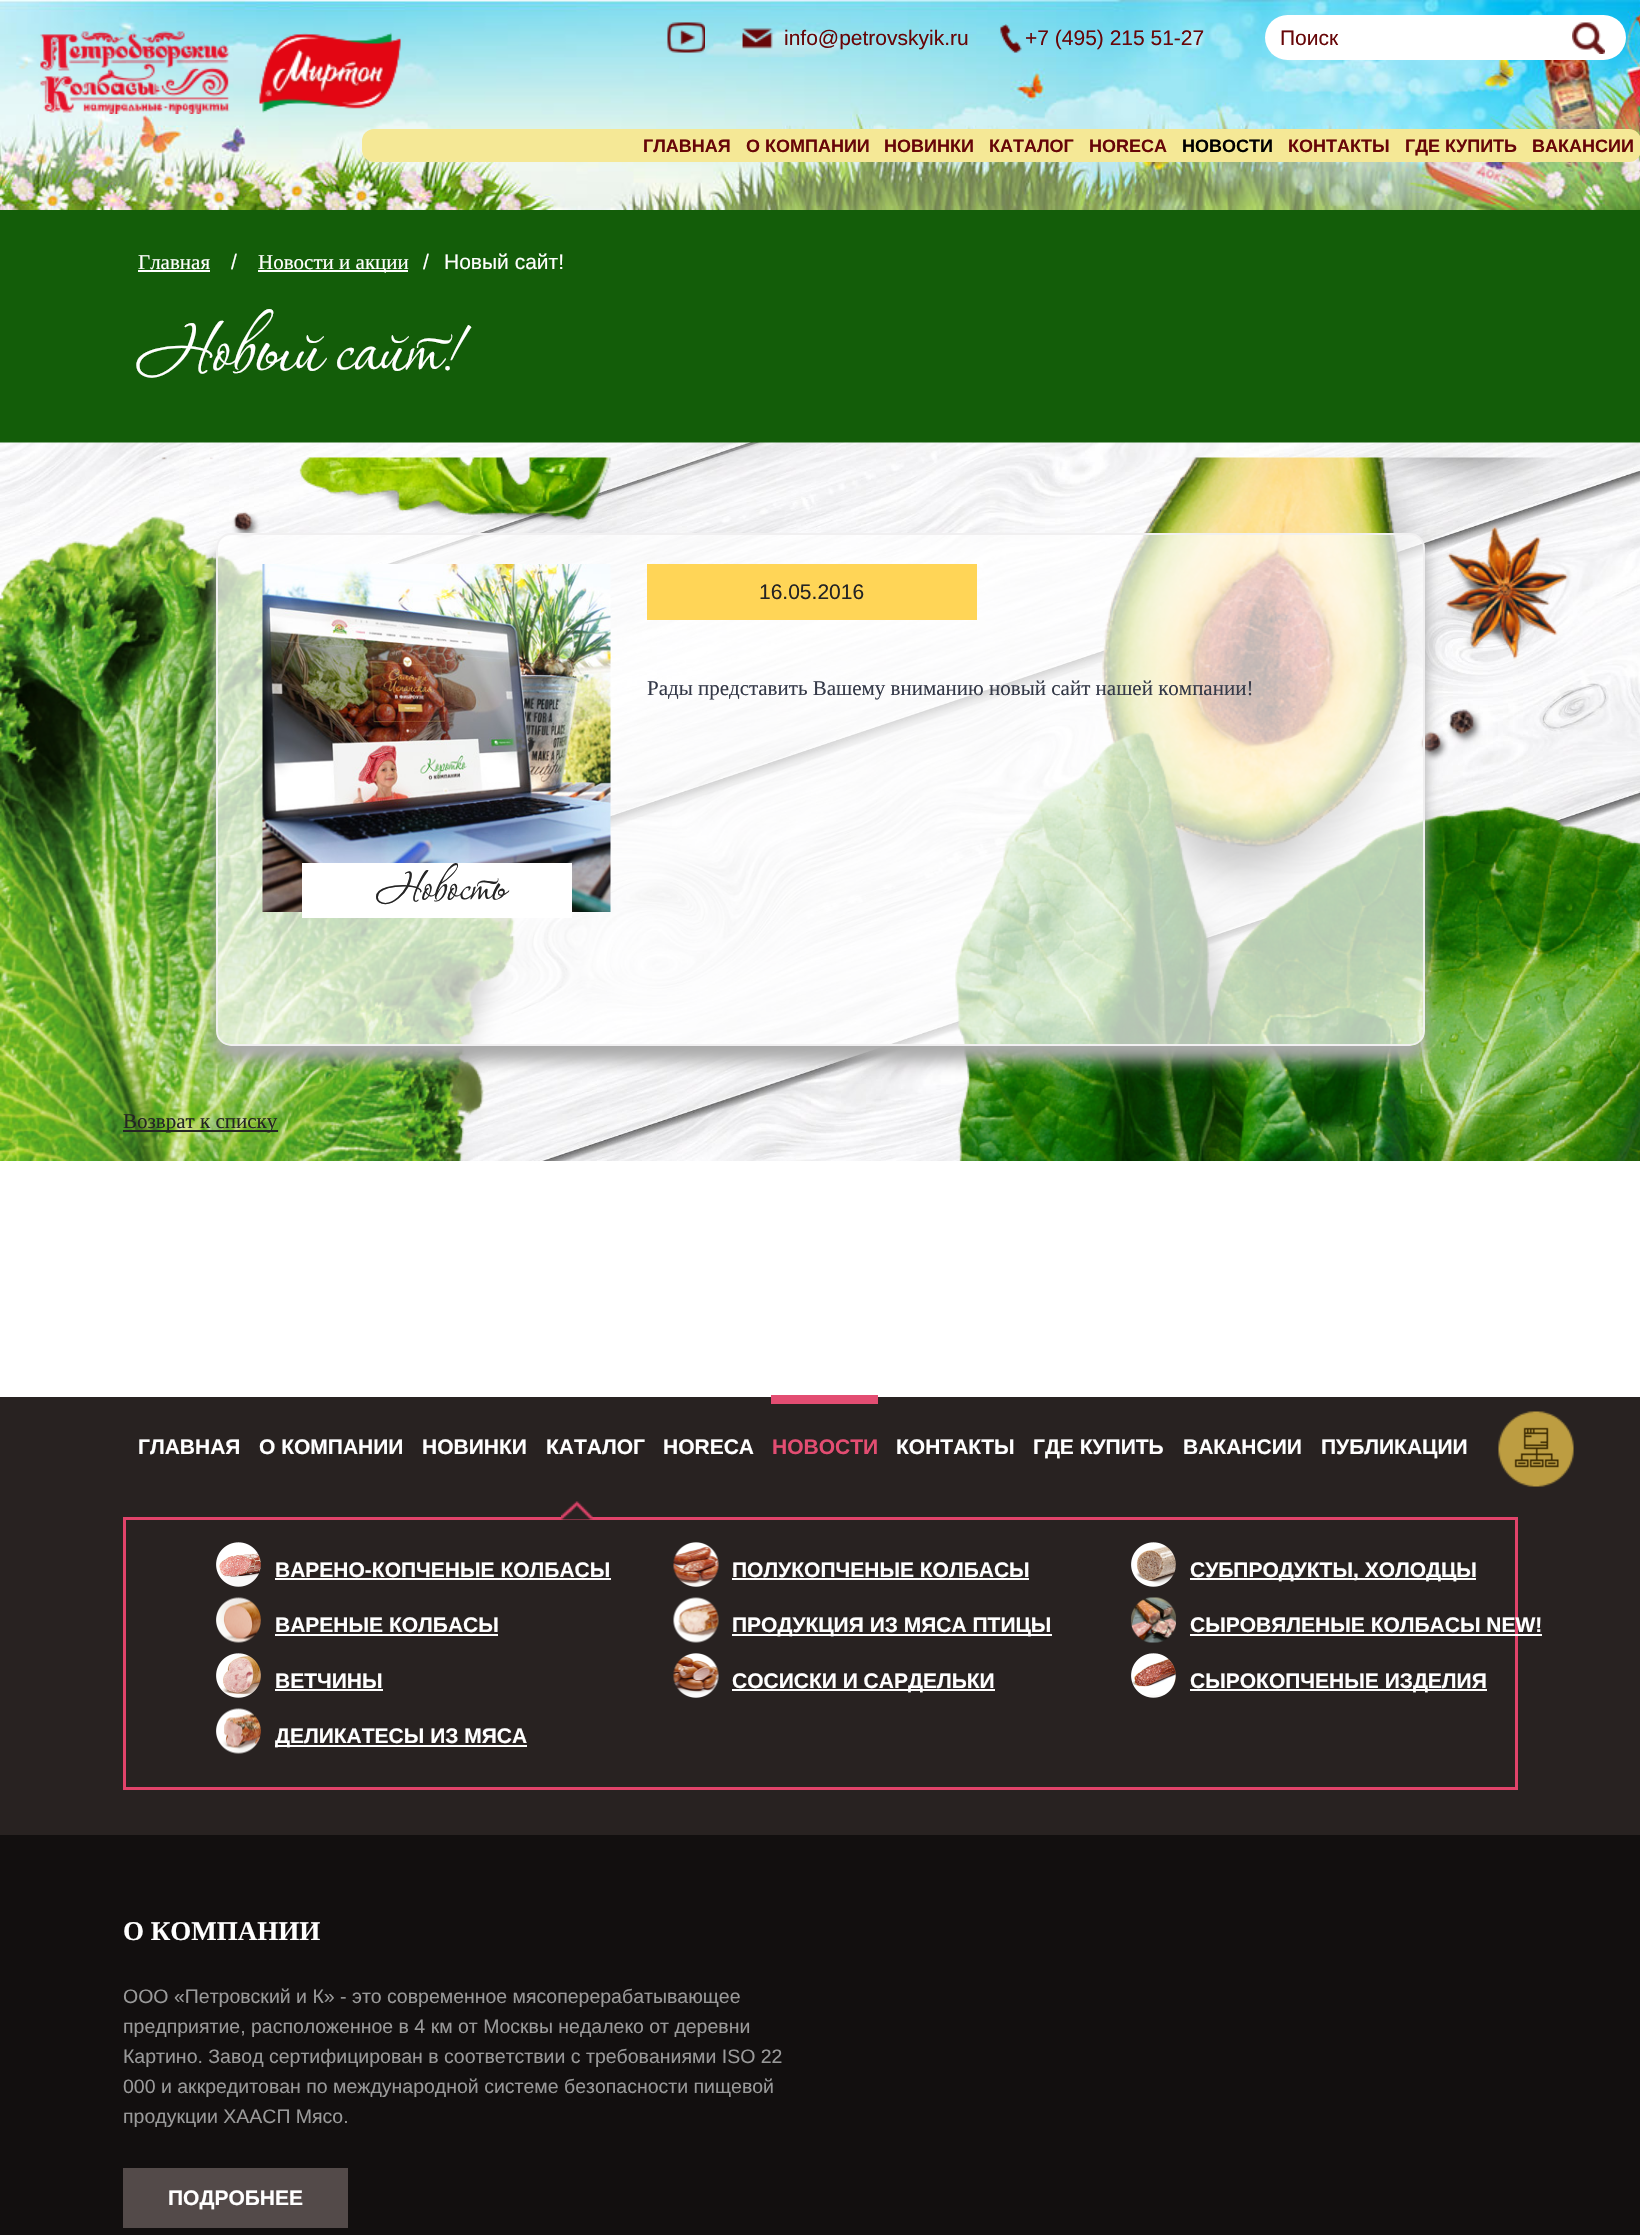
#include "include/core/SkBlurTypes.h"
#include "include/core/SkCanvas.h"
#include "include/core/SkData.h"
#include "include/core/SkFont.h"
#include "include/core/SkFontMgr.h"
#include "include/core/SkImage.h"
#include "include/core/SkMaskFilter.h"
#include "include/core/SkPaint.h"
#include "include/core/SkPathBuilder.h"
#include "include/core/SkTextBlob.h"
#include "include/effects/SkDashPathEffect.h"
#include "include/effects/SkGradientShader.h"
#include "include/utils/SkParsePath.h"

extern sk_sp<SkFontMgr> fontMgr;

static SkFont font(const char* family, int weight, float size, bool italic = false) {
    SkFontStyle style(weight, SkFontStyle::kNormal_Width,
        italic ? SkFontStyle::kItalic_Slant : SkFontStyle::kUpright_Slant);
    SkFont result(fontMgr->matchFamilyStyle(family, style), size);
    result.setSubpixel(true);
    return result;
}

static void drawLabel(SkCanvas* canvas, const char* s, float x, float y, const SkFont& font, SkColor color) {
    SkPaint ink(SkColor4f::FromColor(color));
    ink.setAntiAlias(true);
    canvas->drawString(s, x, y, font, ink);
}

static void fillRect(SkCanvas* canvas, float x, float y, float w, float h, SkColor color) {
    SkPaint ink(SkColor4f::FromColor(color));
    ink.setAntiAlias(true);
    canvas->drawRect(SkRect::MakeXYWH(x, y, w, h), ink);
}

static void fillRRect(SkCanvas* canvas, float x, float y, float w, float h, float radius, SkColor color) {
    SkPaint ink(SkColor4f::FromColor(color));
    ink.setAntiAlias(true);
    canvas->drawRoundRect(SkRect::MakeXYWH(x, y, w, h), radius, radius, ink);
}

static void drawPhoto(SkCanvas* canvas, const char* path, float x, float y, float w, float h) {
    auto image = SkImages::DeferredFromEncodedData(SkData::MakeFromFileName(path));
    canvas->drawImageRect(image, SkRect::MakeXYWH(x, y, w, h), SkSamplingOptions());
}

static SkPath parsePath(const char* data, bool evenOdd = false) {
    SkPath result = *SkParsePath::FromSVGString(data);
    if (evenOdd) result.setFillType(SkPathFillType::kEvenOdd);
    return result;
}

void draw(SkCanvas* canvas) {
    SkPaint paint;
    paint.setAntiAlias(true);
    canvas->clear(0xFFFFFFFF);
    drawPhoto(canvas, "assets/img1.png", 0, 0, 1640, 210);
    drawPhoto(canvas, "assets/img2.png", 667, 22, 38, 31);
    drawPhoto(canvas, "assets/img3.png", 742, 28, 31, 21);
    SkFont font1 = font("Liberation Sans", 400, 21);
    drawLabel(canvas, "info@petrovskyik.ru", 784, 45, font1, 0xFF670608);
    drawPhoto(canvas, "assets/img4.png", 1000, 24, 22, 29);
    drawLabel(canvas, "+7 (495) 215 51-27", 1025, 45, font1, 0xFF670608);
    fillRRect(canvas, 1265, 15, 361, 45, 22.5f, 0xFFFFFFFF);
    drawLabel(canvas, "Поиск", 1280, 45, font1, 0xFF670608);
    drawPhoto(canvas, "assets/img5.png", 1572, 22, 33, 32);
    drawPhoto(canvas, "assets/img6.png", 40, 31, 361, 83);
    fillRRect(canvas, 362, 129, 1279, 33, 12, 0xFFF5E896);
    SkFont font2 = font("Liberation Sans", 700, 18);
    drawLabel(canvas, "ГЛАВНАЯ", 643, 152, font2, 0xFF670608);
    drawLabel(canvas, "О КОМПАНИИ", 746, 152, font2, 0xFF670608);
    drawLabel(canvas, "НОВИНКИ", 884, 152, font2, 0xFF670608);
    drawLabel(canvas, "КАТАЛОГ", 989, 152, font2, 0xFF670608);
    drawLabel(canvas, "HORECA", 1089, 152, font2, 0xFF670608);
    drawLabel(canvas, "НОВОСТИ", 1182, 152, font2, 0xFF000000);
    drawLabel(canvas, "КОНТАКТЫ", 1288, 152, font2, 0xFF670608);
    drawLabel(canvas, "ГДЕ КУПИТЬ", 1405, 152, font2, 0xFF670608);
    drawLabel(canvas, "ВАКАНСИИ", 1532, 152, font2, 0xFF670608);
    fillRect(canvas, 0, 210, 1640, 233, 0xFF135D09);
    SkFont font3 = font("Liberation Serif", 400, 21);
    drawLabel(canvas, "Главная", 138, 269, font3, 0xFFFFFFFF);
    fillRect(canvas, 138, 270, 72, 2, 0xFFFFFFFF);
    drawLabel(canvas, "/", 231, 269, font1, 0xFFFFFFFF);
    fillRect(canvas, 258, 270, 150, 2, 0xFFFFFFFF);
    drawLabel(canvas, "Новости и акции", 258, 269, font3, 0xFFFFFFFF);
    drawLabel(canvas, "/", 423, 269, font1, 0xFFFFFFFF);
    drawLabel(canvas, "Новый сайт!", 444, 269, font1, 0xFFFFFFFF);
    SkFont font4 = font("Corinthia", 400, 90);
    drawLabel(canvas, "Новый сайт!", 138, 369, font4, 0xFFFFFFFF);
    drawPhoto(canvas, "assets/img7.png", 0, 442, 1640, 719);
    drawPhoto(canvas, "assets/img8.png", 0, 457, 611, 704);
    drawPhoto(canvas, "assets/img9.png", 955, 457, 685, 704);
    canvas->save();
    canvas->clipPath(parsePath("M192 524H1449V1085H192ZM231 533H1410C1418.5 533 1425 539.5 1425 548V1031C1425 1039.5 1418.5 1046 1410 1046H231C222.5 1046 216 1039.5 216 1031V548C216 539.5 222.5 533 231 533Z", true), true);
    paint.setColor(0xFFABABAB);
    paint.setMaskFilter(SkMaskFilter::MakeBlur(kNormal_SkBlurStyle, 7.5f));
    canvas->drawRoundRect(SkRect::MakeXYWH(216, 548, 1209, 513), 15, 15, paint);
    paint.setMaskFilter(nullptr);
    canvas->restore();
    paint.setColor(0xB3FFFFFF);
    canvas->drawRoundRect(SkRect::MakeXYWH(217, 534, 1207, 511), 14, 14, paint);
    paint.setStroke(true);
    paint.setStrokeWidth(2);
    paint.setColor(0xFFF1F0F1);
    canvas->drawRoundRect(SkRect::MakeXYWH(217, 534, 1207, 511), 14, 14, paint);
    fillRect(canvas, 647, 564, 330, 56, 0xFFFFD557);
    drawLabel(canvas, "16.05.2016", 759, 599, font1, 0xFF242424);
    drawLabel(canvas, "Рады представить Вашему вниманию новый сайт нашей компании!", 647, 695, font3, 0xFF343948);
    drawPhoto(canvas, "assets/img10.png", 262, 564, 349, 348);
    fillRect(canvas, 302, 863, 270, 55, 0xFFFFFFFF);
    SkFont font5 = font("Corinthia", 400, 54);
    drawLabel(canvas, "Новость", 377, 899, font5, 0xFF242424);
    fillRect(canvas, 123, 1130, 155, 2, 0xFF242424);
    drawLabel(canvas, "Возврат к списку", 123, 1128, font3, 0xFF242424);
    fillRect(canvas, 0, 1397, 1640, 438, 0xFF282221);
    SkFont font6 = font("Liberation Sans", 700, 21);
    drawLabel(canvas, "ГЛАВНАЯ", 138, 1454, font6, 0xFFFFFFFF);
    drawLabel(canvas, "О КОМПАНИИ", 259, 1454, font6, 0xFFFFFFFF);
    drawLabel(canvas, "НОВИНКИ", 422, 1454, font6, 0xFFFFFFFF);
    drawLabel(canvas, "КАТАЛОГ", 546, 1454, font6, 0xFFFFFFFF);
    drawLabel(canvas, "HORECA", 663, 1454, font6, 0xFFFFFFFF);
    drawLabel(canvas, "НОВОСТИ", 772, 1454, font6, 0xFFE34D72);
    fillRect(canvas, 771, 1395, 107, 9, 0xFFE34D72);
    drawLabel(canvas, "КОНТАКТЫ", 896, 1454, font6, 0xFFFFFFFF);
    drawLabel(canvas, "ГДЕ КУПИТЬ", 1033, 1454, font6, 0xFFFFFFFF);
    drawLabel(canvas, "ВАКАНСИИ", 1183, 1454, font6, 0xFFFFFFFF);
    drawLabel(canvas, "ПУБЛИКАЦИИ", 1321, 1454, font6, 0xFFFFFFFF);
    drawPhoto(canvas, "assets/img11.png", 1498, 1411, 76, 76);
    paint.setStrokeWidth(3);
    paint.setColor(0xFFE1436A);
    canvas->drawRect(SkRect::MakeXYWH(124.5f, 1518.5f, 1392, 270), paint);
    drawPhoto(canvas, "assets/img12.png", 561, 1501, 32, 19);
    drawPhoto(canvas, "assets/img13.png", 216, 1542, 45, 45);
    drawLabel(canvas, "ВАРЕНО-КОПЧЕНЫЕ КОЛБАСЫ", 275, 1577, font6, 0xFFFFFFFF);
    fillRect(canvas, 275, 1578, 336, 2, 0xFFFFFFFF);
    drawPhoto(canvas, "assets/img14.png", 216, 1597, 45, 46);
    drawLabel(canvas, "ВАРЕНЫЕ КОЛБАСЫ", 275, 1632, font6, 0xFFFFFFFF);
    fillRect(canvas, 275, 1634, 223, 2, 0xFFFFFFFF);
    drawPhoto(canvas, "assets/img15.png", 216, 1653, 45, 45);
    drawLabel(canvas, "ВЕТЧИНЫ", 275, 1688, font6, 0xFFFFFFFF);
    fillRect(canvas, 275, 1689, 108, 2, 0xFFFFFFFF);
    drawPhoto(canvas, "assets/img16.png", 216, 1708, 45, 46);
    fillRect(canvas, 275, 1745, 252, 2, 0xFFFFFFFF);
    drawLabel(canvas, "ДЕЛИКАТЕСЫ ИЗ МЯСА", 275, 1743, font6, 0xFFFFFFFF);
    drawPhoto(canvas, "assets/img17.png", 673, 1542, 46, 45);
    drawLabel(canvas, "ПОЛУКОПЧЕНЫЕ КОЛБАСЫ", 732, 1577, font6, 0xFFFFFFFF);
    fillRect(canvas, 732, 1578, 297, 2, 0xFFFFFFFF);
    drawPhoto(canvas, "assets/img18.png", 673, 1597, 46, 46);
    fillRect(canvas, 732, 1634, 320, 2, 0xFFFFFFFF);
    drawLabel(canvas, "ПРОДУКЦИЯ ИЗ МЯСА ПТИЦЫ", 732, 1632, font6, 0xFFFFFFFF);
    drawPhoto(canvas, "assets/img19.png", 673, 1653, 46, 45);
    fillRect(canvas, 732, 1689, 263, 2, 0xFFFFFFFF);
    drawLabel(canvas, "СОСИСКИ И САРДЕЛЬКИ", 732, 1688, font6, 0xFFFFFFFF);
    drawPhoto(canvas, "assets/img20.png", 1131, 1542, 45, 45);
    fillRect(canvas, 1190, 1578, 286, 2, 0xFFFFFFFF);
    drawLabel(canvas, "СУБПРОДУКТЫ, ХОЛОДЦЫ", 1190, 1577, font6, 0xFFFFFFFF);
    drawPhoto(canvas, "assets/img21.png", 1131, 1597, 45, 46);
    drawLabel(canvas, "СЫРОВЯЛЕНЫЕ КОЛБАСЫ NEW!", 1190, 1632, font6, 0xFFFFFFFF);
    fillRect(canvas, 1190, 1634, 352, 2, 0xFFFFFFFF);
    drawPhoto(canvas, "assets/img22.png", 1131, 1653, 45, 45);
    fillRect(canvas, 1190, 1689, 297, 2, 0xFFFFFFFF);
    drawLabel(canvas, "СЫРОКОПЧЕНЫЕ ИЗДЕЛИЯ", 1190, 1688, font6, 0xFFFFFFFF);
    fillRect(canvas, 0, 1835, 1640, 400, 0xFF120F0F);
    SkFont font7 = font("Liberation Serif", 700, 27);
    drawLabel(canvas, "О КОМПАНИИ", 123, 1940, font7, 0xFFFFFFFF);
    SkFont font8 = font("Liberation Sans", 400, 19.5f);
    drawLabel(canvas, "ООО «Петровский и К» - это современное мясоперерабатывающее", 123, 2003, font8, 0xFF999999);
    drawLabel(canvas, "предприятие, расположенное в 4 км от Москвы недалеко от деревни", 123, 2033, font8, 0xFF999999);
    drawLabel(canvas, "Картино. Завод сертифицирован в соответствии с требованиями ISO 22", 123, 2063, font8, 0xFF999999);
    drawLabel(canvas, "000 и аккредитован по международной системе безопасности пищевой", 123, 2093, font8, 0xFF999999);
    drawLabel(canvas, "продукции ХААСП Мясо.", 123, 2123, font8, 0xFF999999);
    fillRect(canvas, 123, 2168, 225, 60, 0xFF534A49);
    drawLabel(canvas, "ПОДРОБНЕЕ", 168, 2205, font6, 0xFFFFFFFF);
}
